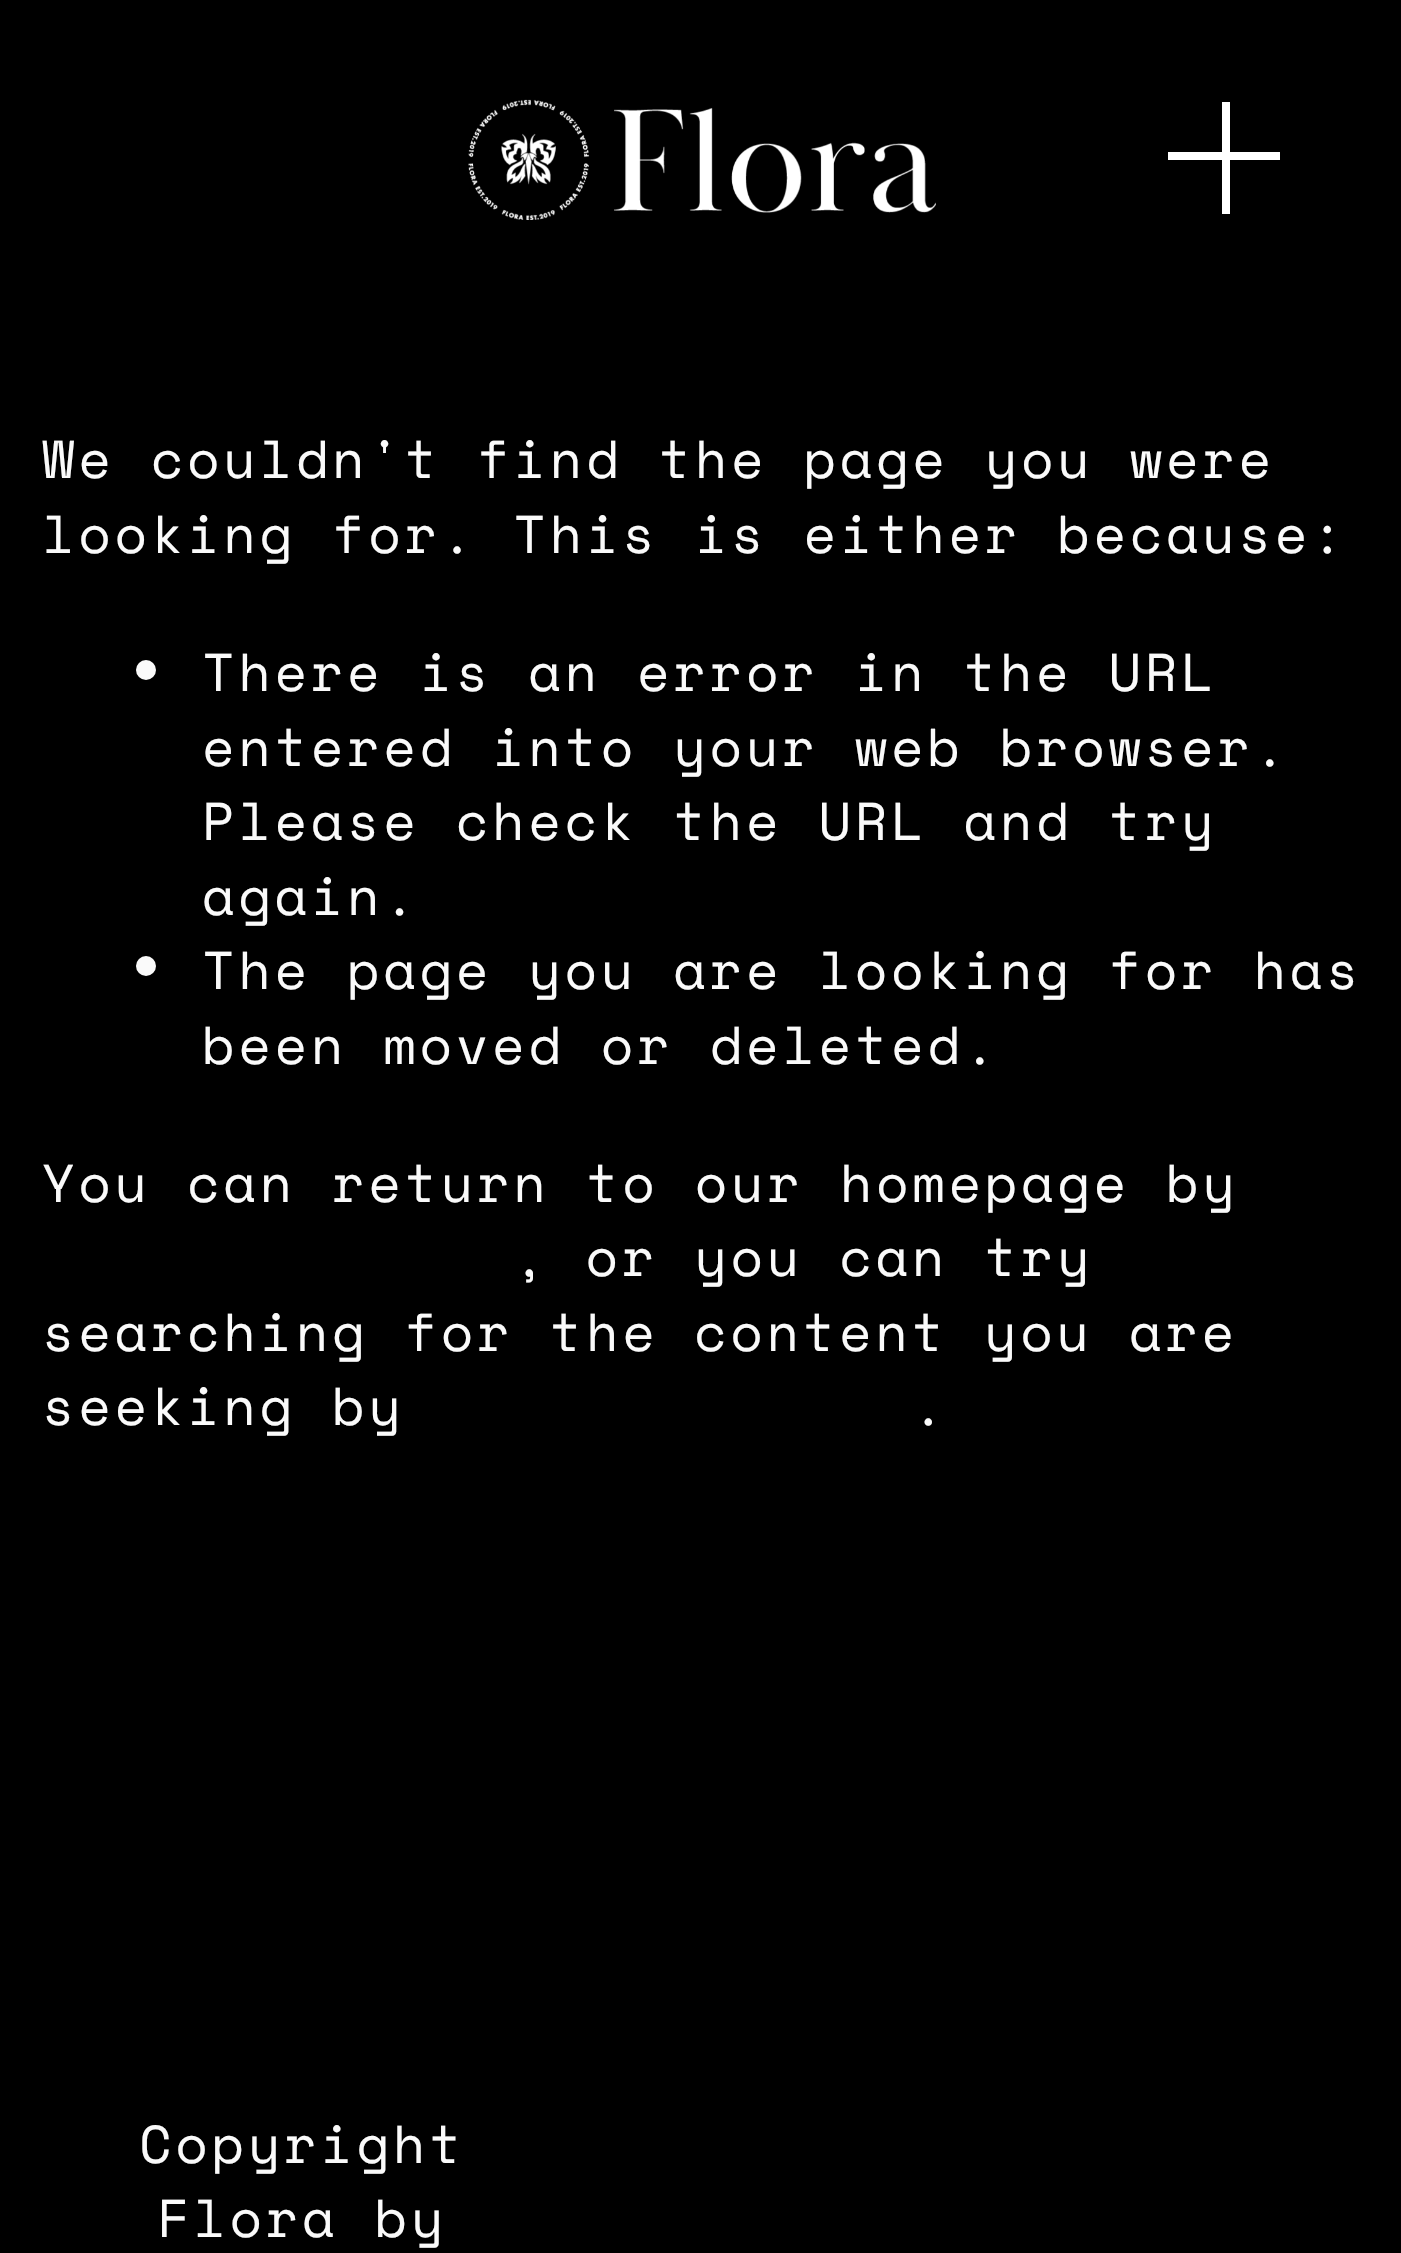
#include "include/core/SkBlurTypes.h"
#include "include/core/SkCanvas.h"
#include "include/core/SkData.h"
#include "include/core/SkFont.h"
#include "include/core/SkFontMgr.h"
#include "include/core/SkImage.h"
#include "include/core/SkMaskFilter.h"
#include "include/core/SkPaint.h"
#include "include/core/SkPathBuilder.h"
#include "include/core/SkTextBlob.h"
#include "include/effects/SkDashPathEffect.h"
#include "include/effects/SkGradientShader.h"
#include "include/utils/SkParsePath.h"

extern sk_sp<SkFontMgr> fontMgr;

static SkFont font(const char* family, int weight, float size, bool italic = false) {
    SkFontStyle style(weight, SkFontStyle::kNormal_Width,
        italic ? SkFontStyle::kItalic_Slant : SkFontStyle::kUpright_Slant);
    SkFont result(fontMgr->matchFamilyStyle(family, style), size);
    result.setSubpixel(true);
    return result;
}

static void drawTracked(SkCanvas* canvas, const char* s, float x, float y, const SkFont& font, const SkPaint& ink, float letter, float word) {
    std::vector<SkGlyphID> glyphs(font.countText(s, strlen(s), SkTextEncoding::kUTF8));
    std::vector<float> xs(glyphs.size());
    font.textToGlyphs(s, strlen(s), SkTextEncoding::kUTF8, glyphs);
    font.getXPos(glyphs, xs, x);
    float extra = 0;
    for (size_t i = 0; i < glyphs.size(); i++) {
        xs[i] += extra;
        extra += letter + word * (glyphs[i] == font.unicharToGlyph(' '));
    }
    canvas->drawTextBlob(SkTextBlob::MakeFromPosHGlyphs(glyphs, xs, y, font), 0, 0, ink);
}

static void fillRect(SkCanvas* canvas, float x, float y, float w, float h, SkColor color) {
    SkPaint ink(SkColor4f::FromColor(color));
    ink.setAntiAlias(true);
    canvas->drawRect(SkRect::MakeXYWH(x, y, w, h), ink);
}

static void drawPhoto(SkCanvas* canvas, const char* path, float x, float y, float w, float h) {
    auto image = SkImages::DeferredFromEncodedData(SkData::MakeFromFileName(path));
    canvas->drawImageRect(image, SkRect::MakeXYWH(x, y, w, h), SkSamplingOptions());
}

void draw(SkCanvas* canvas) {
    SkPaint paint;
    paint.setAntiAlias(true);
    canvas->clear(0xFF000000);
    drawPhoto(canvas, "assets/img1.png", 468, 99, 468, 121);
    fillRect(canvas, 1168, 152, 112, 8, 0xFFFFFFFF);
    fillRect(canvas, 1222, 102, 8, 112, 0xFFFFFFFF);
    SkFont font1 = font("Space Mono", 400, 53.2f);
    paint.setColor(0xFFFAFAFA);
    drawTracked(canvas, "We couldn't find the page you were", 42, 478, font1, paint, 3.7f, 0);
    drawTracked(canvas, "looking for. This is either because:", 42, 553, font1, paint, 3.7f, 0);
    canvas->drawCircle(146, 670, 10, paint);
    drawTracked(canvas, "There is an error in the URL", 202, 691, font1, paint, 3.7f, 0);
    drawTracked(canvas, "entered into your web browser.", 202, 766, font1, paint, 3.7f, 0);
    drawTracked(canvas, "Please check the URL and try", 202, 840, font1, paint, 3.7f, 0);
    drawTracked(canvas, "again.", 202, 915, font1, paint, 3.7f, 0);
    canvas->drawCircle(146, 966, 10, paint);
    drawTracked(canvas, "The page you are looking for has", 202, 989, font1, paint, 3.7f, 0);
    drawTracked(canvas, "been moved or deleted.", 202, 1064, font1, paint, 3.7f, 0);
    drawTracked(canvas, "You can return to our homepage by", 42, 1202, font1, paint, 3.7f, 0);
    drawTracked(canvas, ", or you can try", 513, 1276, font1, paint, 3.7f, 0);
    drawTracked(canvas, "searching for the", 42, 1351, font1, paint, 3.7f, 0);
    drawTracked(canvas, "content you are", 694, 1351, font1, paint, 3.7f, 0);
    drawTracked(canvas, "seeking by", 42, 1425, font1, paint, 3.7f, 0);
    drawTracked(canvas, ".", 912, 1425, font1, paint, 3.7f, 0);
    drawTracked(canvas, "Copyright", 139, 2163, font1, paint, 3.7f, 0);
    drawTracked(canvas, "Flora by", 157, 2237, font1, paint, 3.7f, 0);
}
